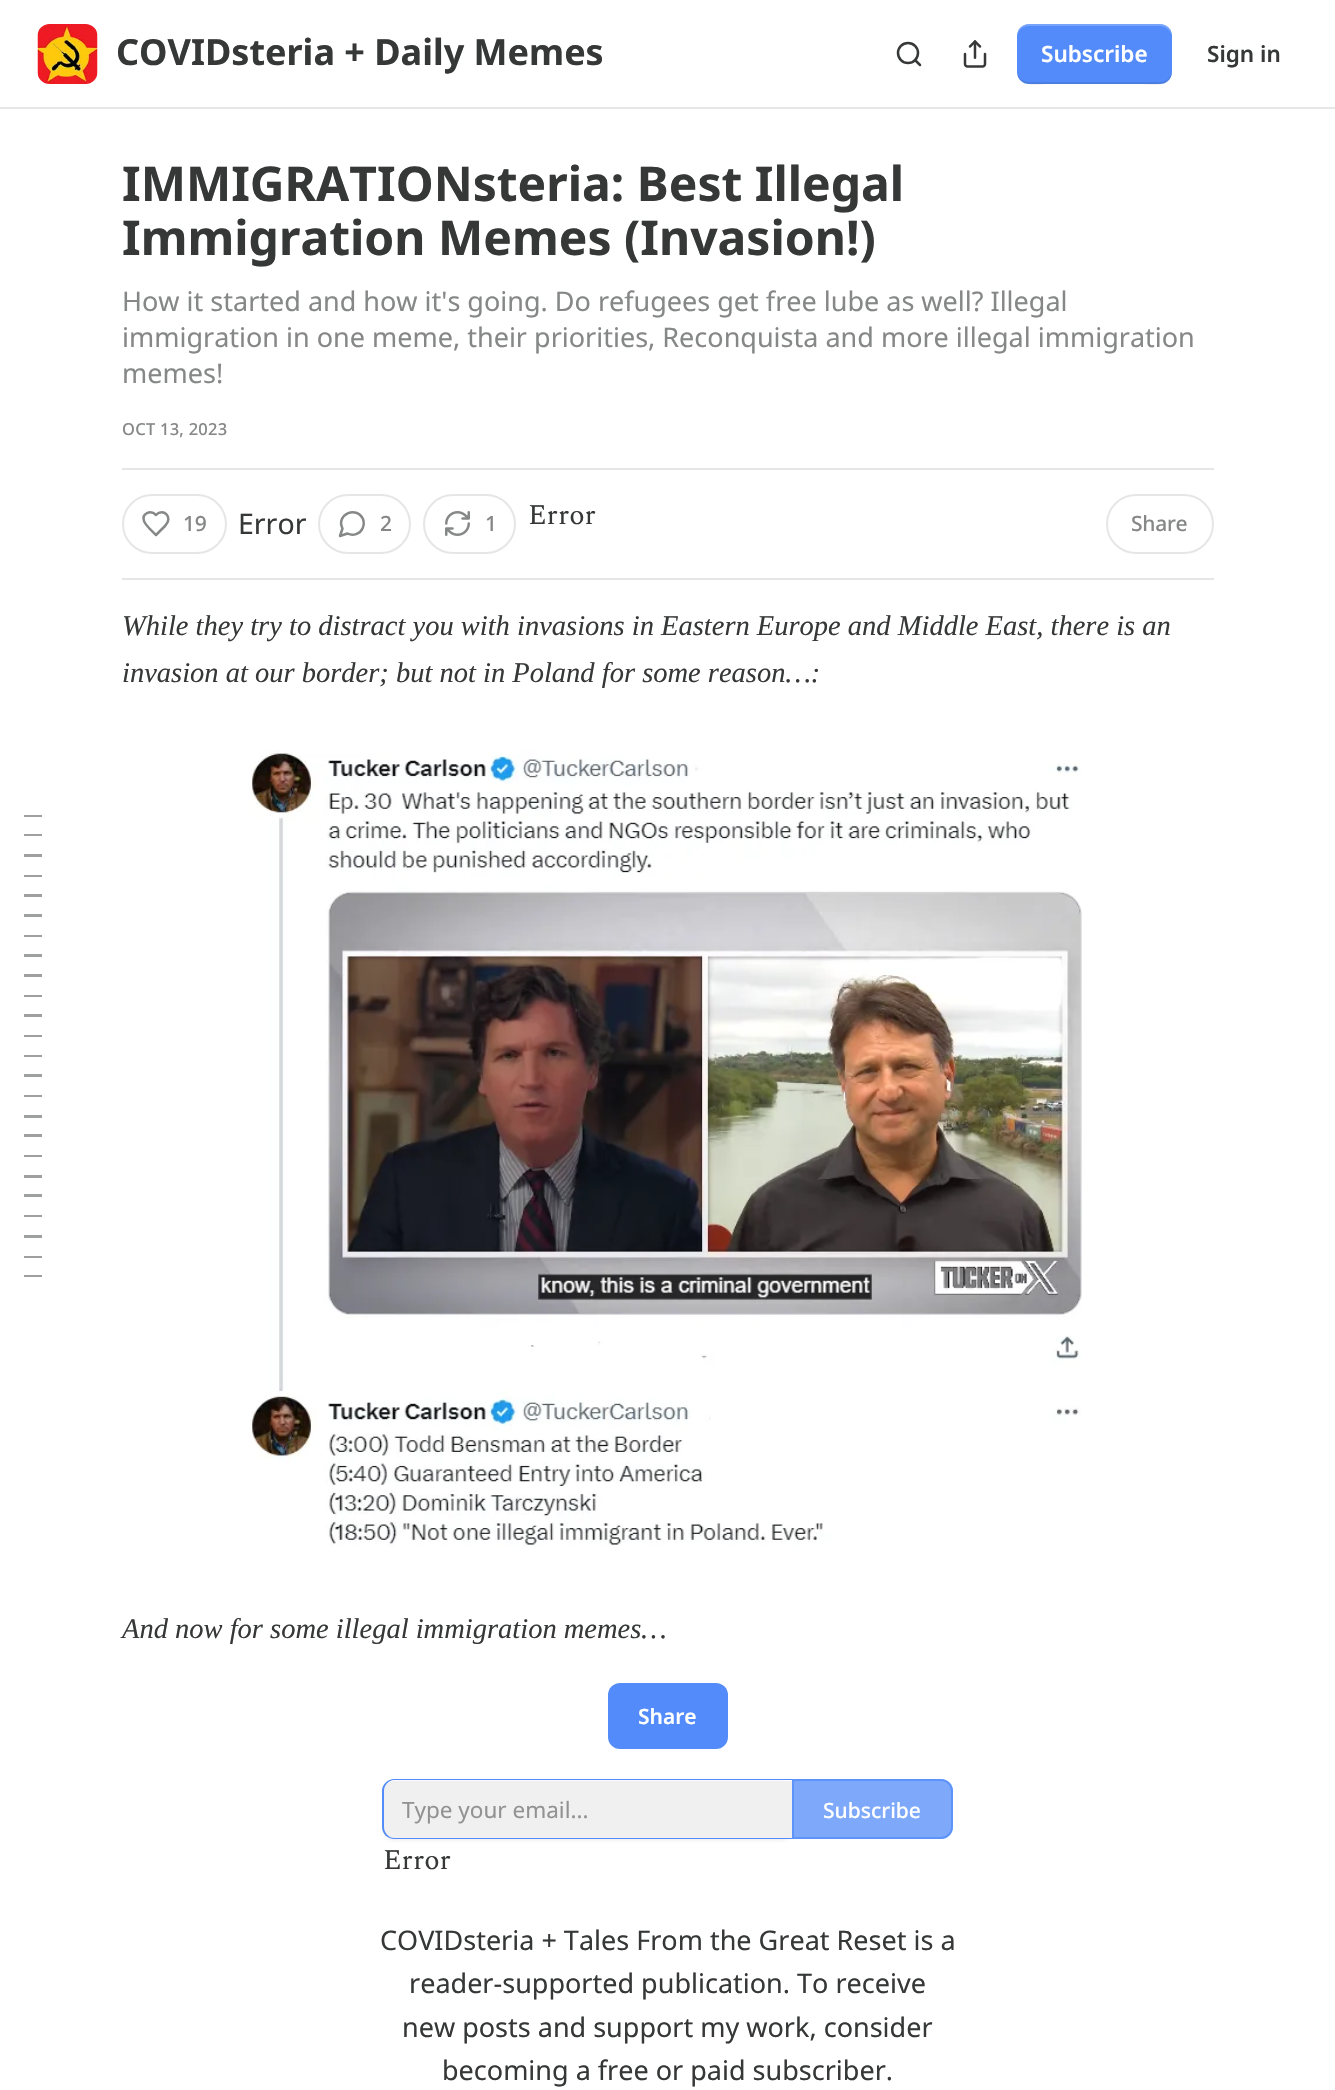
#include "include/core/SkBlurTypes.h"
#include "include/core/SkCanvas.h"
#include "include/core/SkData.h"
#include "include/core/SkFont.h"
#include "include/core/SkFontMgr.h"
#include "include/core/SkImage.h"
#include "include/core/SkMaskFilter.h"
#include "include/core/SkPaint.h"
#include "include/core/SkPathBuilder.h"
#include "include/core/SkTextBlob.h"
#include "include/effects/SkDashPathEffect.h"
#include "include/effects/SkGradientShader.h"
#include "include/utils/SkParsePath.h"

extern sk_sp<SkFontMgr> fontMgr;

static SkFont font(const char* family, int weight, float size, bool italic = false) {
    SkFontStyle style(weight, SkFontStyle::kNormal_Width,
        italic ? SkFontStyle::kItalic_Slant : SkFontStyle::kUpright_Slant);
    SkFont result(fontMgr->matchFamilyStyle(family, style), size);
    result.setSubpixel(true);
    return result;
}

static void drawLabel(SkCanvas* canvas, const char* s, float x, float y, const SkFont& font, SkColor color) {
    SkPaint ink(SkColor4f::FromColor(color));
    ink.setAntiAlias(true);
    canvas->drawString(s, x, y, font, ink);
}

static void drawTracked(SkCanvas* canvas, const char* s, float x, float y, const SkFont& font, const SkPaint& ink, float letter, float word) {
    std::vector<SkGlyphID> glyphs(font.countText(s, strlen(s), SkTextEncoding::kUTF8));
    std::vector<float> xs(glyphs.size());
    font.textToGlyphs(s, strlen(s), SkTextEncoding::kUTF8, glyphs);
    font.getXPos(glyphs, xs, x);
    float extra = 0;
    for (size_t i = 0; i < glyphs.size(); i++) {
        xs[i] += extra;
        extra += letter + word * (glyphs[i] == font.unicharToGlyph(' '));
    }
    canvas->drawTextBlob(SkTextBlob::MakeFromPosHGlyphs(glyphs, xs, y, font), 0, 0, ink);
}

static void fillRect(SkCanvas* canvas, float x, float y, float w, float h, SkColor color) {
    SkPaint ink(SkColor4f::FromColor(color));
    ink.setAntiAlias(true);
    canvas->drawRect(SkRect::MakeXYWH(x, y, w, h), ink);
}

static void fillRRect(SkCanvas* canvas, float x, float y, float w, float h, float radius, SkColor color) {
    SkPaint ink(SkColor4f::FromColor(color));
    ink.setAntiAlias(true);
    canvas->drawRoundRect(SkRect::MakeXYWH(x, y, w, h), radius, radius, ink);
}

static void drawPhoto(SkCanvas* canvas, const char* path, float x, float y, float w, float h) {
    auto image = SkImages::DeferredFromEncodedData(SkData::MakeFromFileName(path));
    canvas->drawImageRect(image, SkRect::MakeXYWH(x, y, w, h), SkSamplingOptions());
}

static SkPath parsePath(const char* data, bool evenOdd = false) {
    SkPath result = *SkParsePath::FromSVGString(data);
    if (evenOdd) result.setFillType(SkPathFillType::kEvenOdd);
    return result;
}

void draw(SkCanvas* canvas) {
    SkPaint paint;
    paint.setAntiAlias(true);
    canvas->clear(0xFFFFFFFF);
    fillRect(canvas, 0, 107, 1335, 2, 0xFFE6E6E6);
    drawPhoto(canvas, "assets/img1.png", 37, 24, 61, 60);
    SkFont font1 = font("Noto Sans", 700, 36);
    drawLabel(canvas, "COVIDsteria + Daily Memes", 116, 65, font1, 0xFF363737);
    paint.setStroke(true);
    paint.setStrokeWidth(2.5f);
    paint.setColor(0xFF363737);
    canvas->drawCircle(908, 53, 10, paint);
    paint.setStrokeCap(SkPaint::kRound_Cap);
    paint.setStrokeJoin(SkPaint::kRound_Join);
    canvas->drawPath(parsePath("M920 65L915 60"), paint);
    drawPhoto(canvas, "assets/img2.png", 963, 40, 24, 28);
    fillRRect(canvas, 1017, 24, 155, 60, 12, 0xFF538CFA);
    paint.setStroke(false);
    paint.setColor(0x1A000000);
    canvas->drawPath(parsePath("M1017 70C1017 89 1037 84 1051 84H1138C1152 84 1172 89 1172 70C1172 77 1166 82 1160 82H1029C1022 82 1017 77 1017 70Z"), paint);
    paint.setColor(0x33FFFFFF);
    canvas->drawPath(parsePath("M1029 26H1160C1166 26 1172 31 1172 38C1172 19 1152 24 1138 24H1051C1037 24 1017 19 1017 38C1017 31 1022 26 1029 26Z"), paint);
    SkFont font2 = font("Noto Sans", 600, 22.5f);
    drawLabel(canvas, "Subscribe", 1041, 62, font2, 0xFFFFFFFF);
    drawLabel(canvas, "Sign in", 1207, 62, font2, 0xFF363737);
    SkFont font3 = font("Noto Sans", 700, 48);
    drawLabel(canvas, "IMMIGRATIONsteria: Best Illegal", 122, 201, font3, 0xFF363737);
    drawLabel(canvas, "Immigration Memes (Invasion!)", 122, 255, font3, 0xFF363737);
    SkFont font4 = font("Noto Sans", 400, 27);
    drawLabel(canvas, "How it started and how it's going. Do refugees get free lube as well? Illegal", 122, 311, font4, 0xFF868787);
    drawLabel(canvas, "immigration in one meme, their priorities, Reconquista and more illegal immigration", 122, 347, font4, 0xFF868787);
    drawLabel(canvas, "memes!", 122, 383, font4, 0xFF868787);
    SkFont font5 = font("Noto Sans", 500, 16.5f);
    paint.setColor(0xFF868787);
    drawTracked(canvas, "OCT 13, 2023", 122, 435, font5, paint, 0.25f, 0);
    fillRect(canvas, 122, 468, 1092, 2, 0xFFE6E6E6);
    fillRect(canvas, 122, 578, 1092, 2, 0xFFE6E6E6);
    paint.setStroke(true);
    paint.setStrokeWidth(2);
    paint.setStrokeCap(SkPaint::kButt_Cap);
    paint.setStrokeJoin(SkPaint::kMiter_Join);
    paint.setColor(0xFFE6E6E6);
    canvas->drawRoundRect(SkRect::MakeXYWH(123, 495, 103, 58), 29, 29, paint);
    paint.setStrokeWidth(2.5f);
    paint.setStrokeCap(SkPaint::kRound_Cap);
    paint.setStrokeJoin(SkPaint::kRound_Join);
    paint.setColor(0xFF868787);
    canvas->drawPath(parsePath("M165 526C174 517 163 507.5 156 515C150.5 509.5 141.5 513.5 144 521C145 525 153 532 156 535Z"), paint);
    SkFont font6 = font("Noto Sans", 500, 21);
    paint.setStroke(false);
    drawTracked(canvas, "19", 183, 531, font6, paint, -0.25f, 0);
    SkFont font7 = font("Noto Sans", 400, 28.5f);
    drawLabel(canvas, "Error", 238, 534, font7, 0xFF363737);
    paint.setStroke(true);
    paint.setStrokeWidth(2);
    paint.setStrokeCap(SkPaint::kButt_Cap);
    paint.setStrokeJoin(SkPaint::kMiter_Join);
    paint.setColor(0xFFE6E6E6);
    canvas->drawRoundRect(SkRect::MakeXYWH(319, 495, 91, 58), 29, 29, paint);
    paint.setStrokeWidth(2.5f);
    paint.setStrokeCap(SkPaint::kRound_Cap);
    paint.setStrokeJoin(SkPaint::kRound_Join);
    paint.setColor(0xFF868787);
    canvas->drawPath(parsePath("M347.5 533.5C353 536.5 360 534 362.5 528.5C364 525.5 364 522 363 519C356.5 505 335.5 515 342.5 528.5L340 536Z"), paint);
    paint.setStroke(false);
    drawTracked(canvas, "2", 380, 531, font6, paint, -0.25f, 0);
    paint.setStroke(true);
    paint.setStrokeWidth(2);
    paint.setStrokeCap(SkPaint::kButt_Cap);
    paint.setStrokeJoin(SkPaint::kMiter_Join);
    paint.setColor(0xFFE6E6E6);
    canvas->drawRoundRect(SkRect::MakeXYWH(424, 495, 91, 58), 29, 29, paint);
    drawPhoto(canvas, "assets/img3.png", 445, 511, 25, 25);
    paint.setStroke(false);
    paint.setColor(0xFF868787);
    drawTracked(canvas, "1", 485, 531, font6, paint, -0.25f, 0);
    SkFont font8 = font("Spectral", 400, 28.5f);
    drawLabel(canvas, "Error", 528, 524, font8, 0xFF363737);
    paint.setStroke(true);
    paint.setColor(0xFFE6E6E6);
    canvas->drawRoundRect(SkRect::MakeXYWH(1107, 495, 106, 58), 29, 29, paint);
    paint.setStroke(false);
    paint.setColor(0xFF868787);
    drawTracked(canvas, "Share", 1131, 531, font6, paint, -0.25f, 0);
    fillRect(canvas, 24, 815, 18, 2, 0xFF9E9F9F);
    fillRect(canvas, 24, 834, 18, 2, 0xFF9E9F9F);
    fillRect(canvas, 24, 854, 18, 3, 0xFF9E9F9F);
    fillRect(canvas, 24, 875, 18, 2, 0xFF9E9F9F);
    fillRect(canvas, 24, 894, 18, 3, 0xFF9E9F9F);
    fillRect(canvas, 24, 914, 18, 3, 0xFF9E9F9F);
    fillRect(canvas, 24, 935, 18, 2, 0xFF9E9F9F);
    fillRect(canvas, 24, 954, 18, 3, 0xFF9E9F9F);
    fillRect(canvas, 24, 974, 18, 3, 0xFF9E9F9F);
    fillRect(canvas, 24, 995, 18, 2, 0xFF9E9F9F);
    fillRect(canvas, 24, 1014, 18, 3, 0xFF9E9F9F);
    fillRect(canvas, 24, 1035, 18, 2, 0xFF9E9F9F);
    fillRect(canvas, 24, 1055, 18, 2, 0xFF9E9F9F);
    fillRect(canvas, 24, 1074, 18, 3, 0xFF9E9F9F);
    fillRect(canvas, 24, 1095, 18, 2, 0xFF9E9F9F);
    fillRect(canvas, 24, 1115, 18, 3, 0xFF9E9F9F);
    fillRect(canvas, 24, 1134, 18, 3, 0xFF9E9F9F);
    fillRect(canvas, 24, 1155, 18, 2, 0xFF9E9F9F);
    fillRect(canvas, 24, 1175, 18, 3, 0xFF9E9F9F);
    fillRect(canvas, 24, 1194, 18, 3, 0xFF9E9F9F);
    fillRect(canvas, 24, 1215, 18, 2, 0xFF9E9F9F);
    fillRect(canvas, 24, 1235, 18, 3, 0xFF9E9F9F);
    fillRect(canvas, 24, 1256, 18, 2, 0xFF9E9F9F);
    fillRect(canvas, 24, 1275, 18, 2, 0xFF9E9F9F);
    SkFont font9 = font("Liberation Serif", 400, 28.5f, true);
    drawLabel(canvas, "While they try to distract you with invasions in Eastern Europe and Middle East, there is an", 122, 635, font9, 0xFF363737);
    drawLabel(canvas, "invasion at our border; but not in Poland for some reason…:", 122, 682, font9, 0xFF363737);
    drawPhoto(canvas, "assets/img4.png", 251, 750, 831, 797);
    drawLabel(canvas, "And now for some illegal immigration memes…", 122, 1638, font9, 0xFF363737);
    fillRRect(canvas, 608, 1683, 120, 66, 12, 0xFF538CFA);
    SkFont font10 = font("Noto Sans", 600, 21);
    drawLabel(canvas, "Share", 638, 1724, font10, 0xFFFFFFFF);
    paint.setColor(0x0D000000);
    paint.setMaskFilter(SkMaskFilter::MakeBlur(kNormal_SkBlurStyle, 1.5f));
    canvas->drawRoundRect(SkRect::MakeXYWH(383, 1781, 409, 60), 12, 12, paint);
    paint.setMaskFilter(nullptr);
    paint.setColor(0xFFF0F0F0);
    canvas->drawPath(parsePath("M395 1781H792V1838H395C389 1838 384 1833 384 1827V1792C384 1786 389 1781 395 1781Z"), paint);
    paint.setColor(0xFF538CFA);
    canvas->drawPath(parsePath("M394 1779H792V1839H394C388 1839 382 1834 382 1827V1791C382 1784 388 1779 394 1779ZM394 1780H792V1838H394C389 1838 384 1833 384 1827V1791C384 1785 389 1780 394 1780Z", true), paint);
    SkFont font11 = font("Noto Sans", 400, 22.5f);
    drawLabel(canvas, "Type your email...", 402, 1818, font11, 0xFF929292);
    paint.setColor(0xBF538CFA);
    canvas->drawPath(parsePath("M792 1779H941C947.5 1779 953 1784.5 953 1791V1827C953 1833.5 947.5 1839 941 1839H792Z"), paint);
    paint.setStroke(true);
    canvas->drawPath(parsePath("M793 1780H941C947 1780 952 1785 952 1791V1827C952 1833 947 1838 941 1838H793Z"), paint);
    drawLabel(canvas, "Subscribe", 823, 1818, font6, 0xFFFFFFFF);
    drawLabel(canvas, "Error", 383, 1869, font8, 0xFF363737);
    drawLabel(canvas, "COVIDsteria + Tales From the Great Reset is a", 380, 1950, font4, 0xFF363737);
    drawLabel(canvas, "reader-supported publication. To receive", 409, 1993, font4, 0xFF363737);
    drawLabel(canvas, "new posts and support my work, consider", 402, 2037, font4, 0xFF363737);
    drawLabel(canvas, "becoming a free or paid subscriber.", 442, 2080, font4, 0xFF363737);
}
